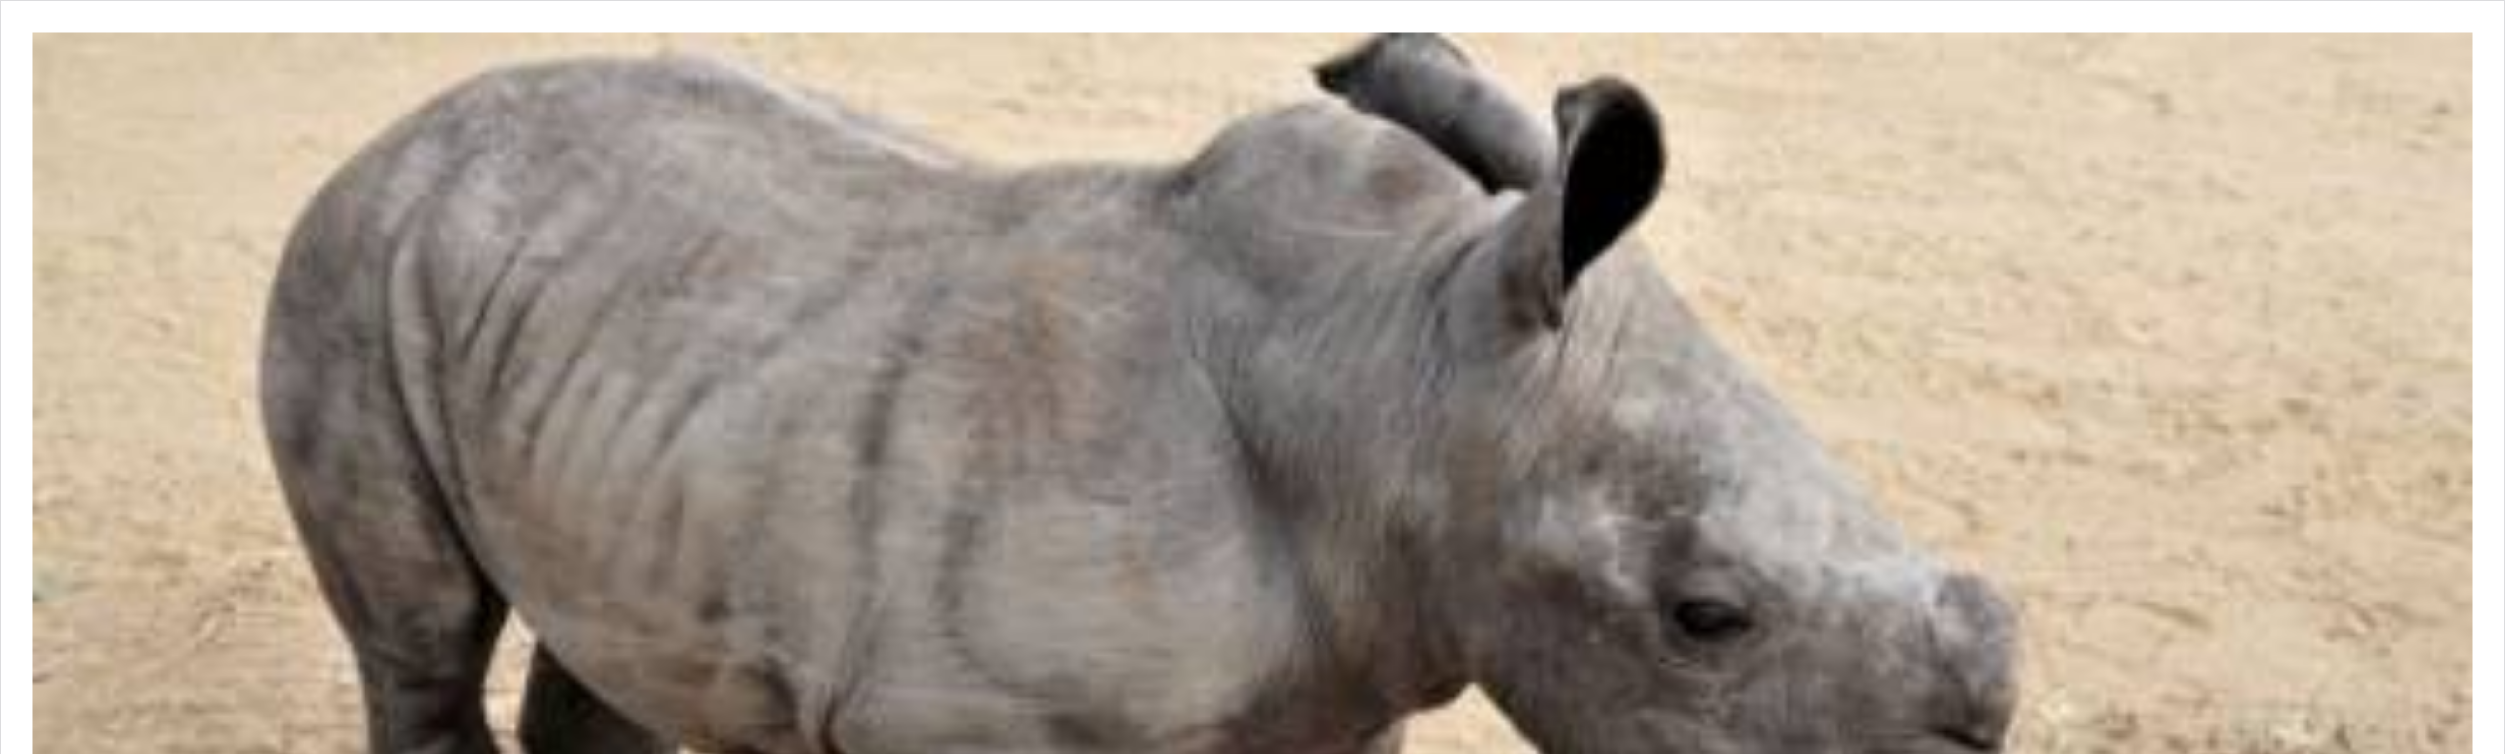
#include "include/core/SkBlurTypes.h"
#include "include/core/SkCanvas.h"
#include "include/core/SkData.h"
#include "include/core/SkFont.h"
#include "include/core/SkFontMgr.h"
#include "include/core/SkImage.h"
#include "include/core/SkMaskFilter.h"
#include "include/core/SkPaint.h"
#include "include/core/SkPathBuilder.h"
#include "include/core/SkTextBlob.h"
#include "include/effects/SkDashPathEffect.h"
#include "include/effects/SkGradientShader.h"
#include "include/utils/SkParsePath.h"

extern sk_sp<SkFontMgr> fontMgr;

static void drawPhoto(SkCanvas* canvas, const char* path, float x, float y, float w, float h) {
    auto image = SkImages::DeferredFromEncodedData(SkData::MakeFromFileName(path));
    canvas->drawImageRect(image, SkRect::MakeXYWH(x, y, w, h), SkSamplingOptions());
}

void draw(SkCanvas* canvas) {
    SkPaint paint;
    paint.setAntiAlias(true);
    canvas->clear(0xFFFFFFFF);
    paint.setStroke(true);
    paint.setStrokeWidth(1);
    paint.setColor(0xFFDCDCDE);
    canvas->drawRect(SkRect::MakeXYWH(0.5f, 0.5f, 2504, 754), paint);
    drawPhoto(canvas, "assets/img1.png", 32, 32, 2441, 722);
}
